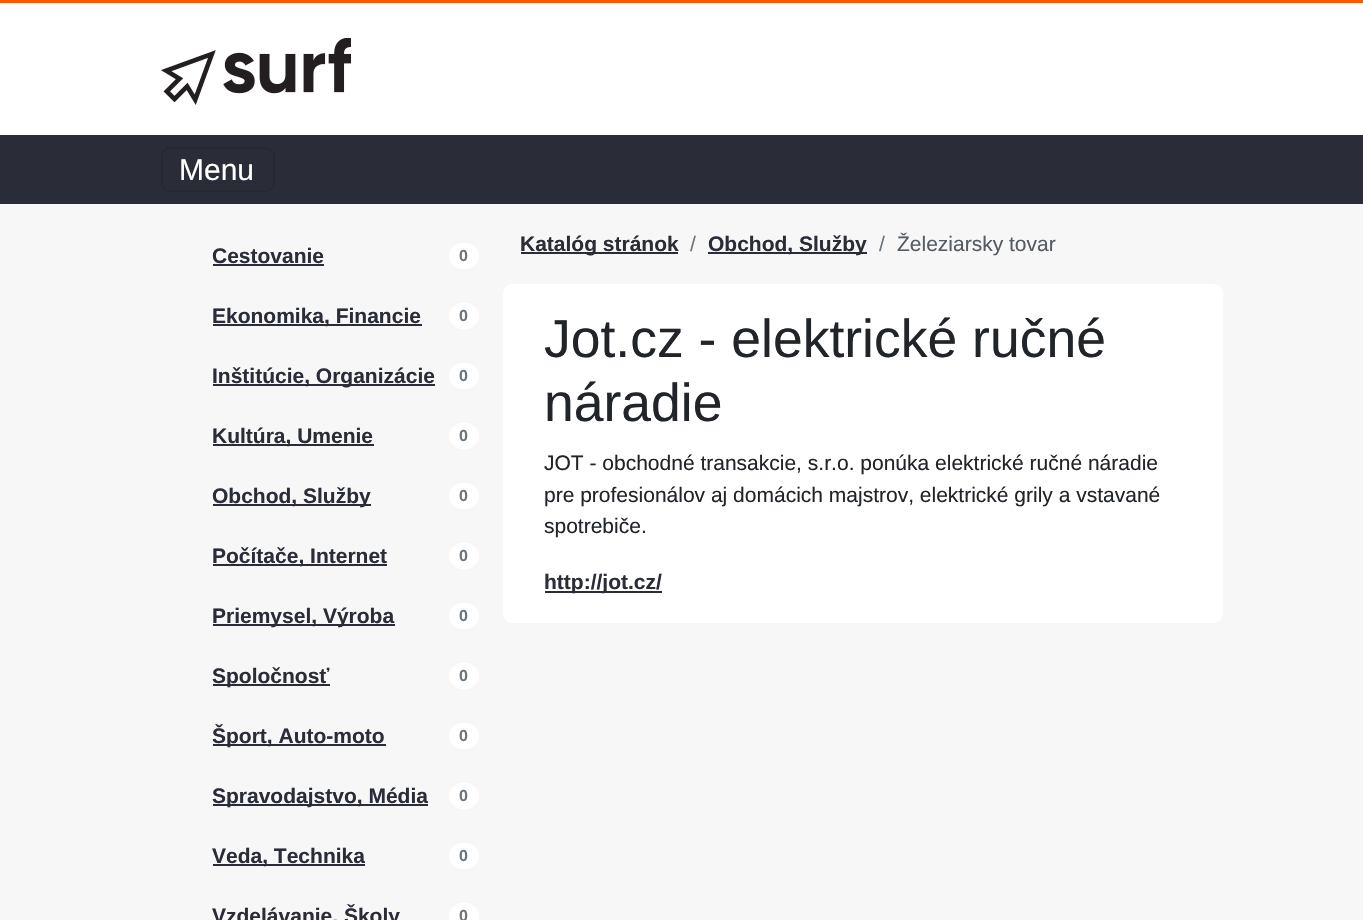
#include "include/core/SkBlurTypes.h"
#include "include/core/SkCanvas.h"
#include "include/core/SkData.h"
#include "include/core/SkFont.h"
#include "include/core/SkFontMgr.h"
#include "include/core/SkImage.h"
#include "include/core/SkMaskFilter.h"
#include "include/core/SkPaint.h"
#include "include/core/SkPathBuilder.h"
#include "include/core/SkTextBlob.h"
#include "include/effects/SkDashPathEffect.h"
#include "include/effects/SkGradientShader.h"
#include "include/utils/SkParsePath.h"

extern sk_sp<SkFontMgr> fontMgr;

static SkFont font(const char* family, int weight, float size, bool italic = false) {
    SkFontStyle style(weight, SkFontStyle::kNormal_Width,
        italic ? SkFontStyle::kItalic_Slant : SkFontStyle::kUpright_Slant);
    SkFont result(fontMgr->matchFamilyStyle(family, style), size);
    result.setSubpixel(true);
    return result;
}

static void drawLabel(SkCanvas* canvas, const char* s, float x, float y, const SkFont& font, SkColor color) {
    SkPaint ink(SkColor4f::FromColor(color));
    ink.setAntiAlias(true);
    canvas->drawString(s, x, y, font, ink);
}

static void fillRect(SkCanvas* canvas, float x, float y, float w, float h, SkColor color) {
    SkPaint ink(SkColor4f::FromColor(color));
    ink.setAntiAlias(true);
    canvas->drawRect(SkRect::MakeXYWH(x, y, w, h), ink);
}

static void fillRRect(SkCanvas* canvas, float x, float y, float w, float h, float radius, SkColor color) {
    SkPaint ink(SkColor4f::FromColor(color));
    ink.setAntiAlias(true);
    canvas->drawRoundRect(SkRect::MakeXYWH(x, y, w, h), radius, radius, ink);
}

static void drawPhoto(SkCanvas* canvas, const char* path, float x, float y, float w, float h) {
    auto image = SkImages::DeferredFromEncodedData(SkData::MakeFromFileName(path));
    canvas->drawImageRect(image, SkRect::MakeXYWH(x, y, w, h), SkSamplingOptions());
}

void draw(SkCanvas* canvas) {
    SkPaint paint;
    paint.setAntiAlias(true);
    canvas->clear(0xFFF7F7F7);
    fillRect(canvas, 0, 3, 1363, 132, 0xFFFFFFFF);
    fillRect(canvas, 0, 0, 1363, 3, 0xFFFF5400);
    drawPhoto(canvas, "assets/img1.png", 161, 38, 190, 67);
    fillRect(canvas, 0, 135, 1363, 69, 0xFF2A2C38);
    paint.setStroke(true);
    paint.setStrokeWidth(2);
    paint.setColor(0xFF262832);
    canvas->drawRoundRect(SkRect::MakeXYWH(162, 148, 112, 43), 8, 8, paint);
    SkFont font1 = font("Liberation Sans", 400, 30);
    drawLabel(canvas, "Menu", 179, 180, font1, 0xFFFFFFFF);
    SkFont font2 = font("Liberation Sans", 700, 21);
    drawLabel(canvas, "Cestovanie", 212, 263, font2, 0xFF2A2C38);
    fillRect(canvas, 213, 264, 111, 2, 0xFF2A2C38);
    fillRRect(canvas, 449, 243, 30, 26, 13, 0xFFFFFFFF);
    SkFont font3 = font("Liberation Sans", 700, 16);
    drawLabel(canvas, "0", 459, 261, font3, 0xFF6C757D);
    fillRect(canvas, 213, 324, 209, 2, 0xFF2A2C38);
    drawLabel(canvas, "Ekonomika, Financie", 212, 323, font2, 0xFF2A2C38);
    fillRRect(canvas, 449, 303, 30, 26, 13, 0xFFFFFFFF);
    drawLabel(canvas, "0", 459, 321, font3, 0xFF6C757D);
    fillRect(canvas, 213, 384, 222, 2, 0xFF2A2C38);
    drawLabel(canvas, "Inštitúcie, Organizácie", 212, 383, font2, 0xFF2A2C38);
    fillRRect(canvas, 449, 363, 30, 26, 13, 0xFFFFFFFF);
    drawLabel(canvas, "0", 459, 381, font3, 0xFF6C757D);
    fillRect(canvas, 213, 444, 161, 2, 0xFF2A2C38);
    drawLabel(canvas, "Kultúra, Umenie", 212, 443, font2, 0xFF2A2C38);
    fillRRect(canvas, 449, 423, 30, 26, 13, 0xFFFFFFFF);
    drawLabel(canvas, "0", 459, 441, font3, 0xFF6C757D);
    fillRect(canvas, 213, 504, 158, 2, 0xFF2A2C38);
    drawLabel(canvas, "Obchod, Služby", 212, 503, font2, 0xFF2A2C38);
    fillRRect(canvas, 449, 483, 30, 26, 13, 0xFFFFFFFF);
    drawLabel(canvas, "0", 459, 501, font3, 0xFF6C757D);
    fillRect(canvas, 213, 564, 174, 2, 0xFF2A2C38);
    drawLabel(canvas, "Počítače, Internet", 212, 563, font2, 0xFF2A2C38);
    fillRRect(canvas, 449, 543, 30, 26, 13, 0xFFFFFFFF);
    drawLabel(canvas, "0", 459, 561, font3, 0xFF6C757D);
    fillRect(canvas, 213, 624, 182, 2, 0xFF2A2C38);
    drawLabel(canvas, "Priemysel, Výroba", 212, 623, font2, 0xFF2A2C38);
    fillRRect(canvas, 449, 603, 30, 26, 13, 0xFFFFFFFF);
    drawLabel(canvas, "0", 459, 621, font3, 0xFF6C757D);
    fillRect(canvas, 213, 684, 117, 2, 0xFF2A2C38);
    drawLabel(canvas, "Spoločnosť", 212, 683, font2, 0xFF2A2C38);
    fillRRect(canvas, 449, 663, 30, 26, 13, 0xFFFFFFFF);
    drawLabel(canvas, "0", 459, 681, font3, 0xFF6C757D);
    fillRect(canvas, 213, 744, 173, 2, 0xFF2A2C38);
    drawLabel(canvas, "Šport, Auto-moto", 212, 743, font2, 0xFF2A2C38);
    fillRRect(canvas, 449, 723, 30, 26, 13, 0xFFFFFFFF);
    drawLabel(canvas, "0", 459, 741, font3, 0xFF6C757D);
    fillRect(canvas, 213, 804, 215, 2, 0xFF2A2C38);
    drawLabel(canvas, "Spravodajstvo, Média", 212, 803, font2, 0xFF2A2C38);
    fillRRect(canvas, 449, 783, 30, 26, 13, 0xFFFFFFFF);
    drawLabel(canvas, "0", 459, 801, font3, 0xFF6C757D);
    fillRect(canvas, 213, 864, 152, 2, 0xFF2A2C38);
    drawLabel(canvas, "Veda, Technika", 212, 863, font2, 0xFF2A2C38);
    fillRRect(canvas, 449, 843, 30, 26, 13, 0xFFFFFFFF);
    drawLabel(canvas, "0", 459, 861, font3, 0xFF6C757D);
    drawLabel(canvas, "Vzdelávanie, Školy", 212, 923, font2, 0xFF2A2C38);
    fillRRect(canvas, 449, 903, 30, 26, 13, 0xFFFFFFFF);
    drawLabel(canvas, "0", 459, 921, font3, 0xFF6C757D);
    fillRect(canvas, 521, 252, 157, 2, 0xFF2A2C38);
    drawLabel(canvas, "Katalóg stránok", 520, 251, font2, 0xFF2A2C38);
    SkFont font4 = font("Liberation Sans", 400, 21);
    drawLabel(canvas, "/", 690, 251, font4, 0xFF6C757D);
    fillRect(canvas, 708, 252, 159, 2, 0xFF2A2C38);
    drawLabel(canvas, "Obchod, Služby", 708, 251, font2, 0xFF2A2C38);
    drawLabel(canvas, "/", 879, 251, font4, 0xFF6C757D);
    drawLabel(canvas, "Železiarsky tovar", 897, 251, font4, 0xFF545B62);
    fillRRect(canvas, 503, 284, 720, 339, 9, 0xFFFFFFFF);
    SkFont font5 = font("Liberation Sans", 400, 53.5f);
    drawLabel(canvas, "Jot.cz - elektrické ručné", 544, 357, font5, 0xFF212529);
    drawLabel(canvas, "náradie", 544, 421, font5, 0xFF212529);
    drawLabel(canvas, "JOT - obchodné transakcie, s.r.o. ponúka elektrické ručné náradie", 544, 470, font4, 0xFF212529);
    drawLabel(canvas, "pre profesionálov aj domácich majstrov, elektrické grily a vstavané", 544, 502, font4, 0xFF212529);
    drawLabel(canvas, "spotrebiče.", 544, 533, font4, 0xFF212529);
    fillRect(canvas, 545, 591, 117, 2, 0xFF2A2C38);
    drawLabel(canvas, "http://jot.cz/", 544, 589, font2, 0xFF2A2C38);
}
